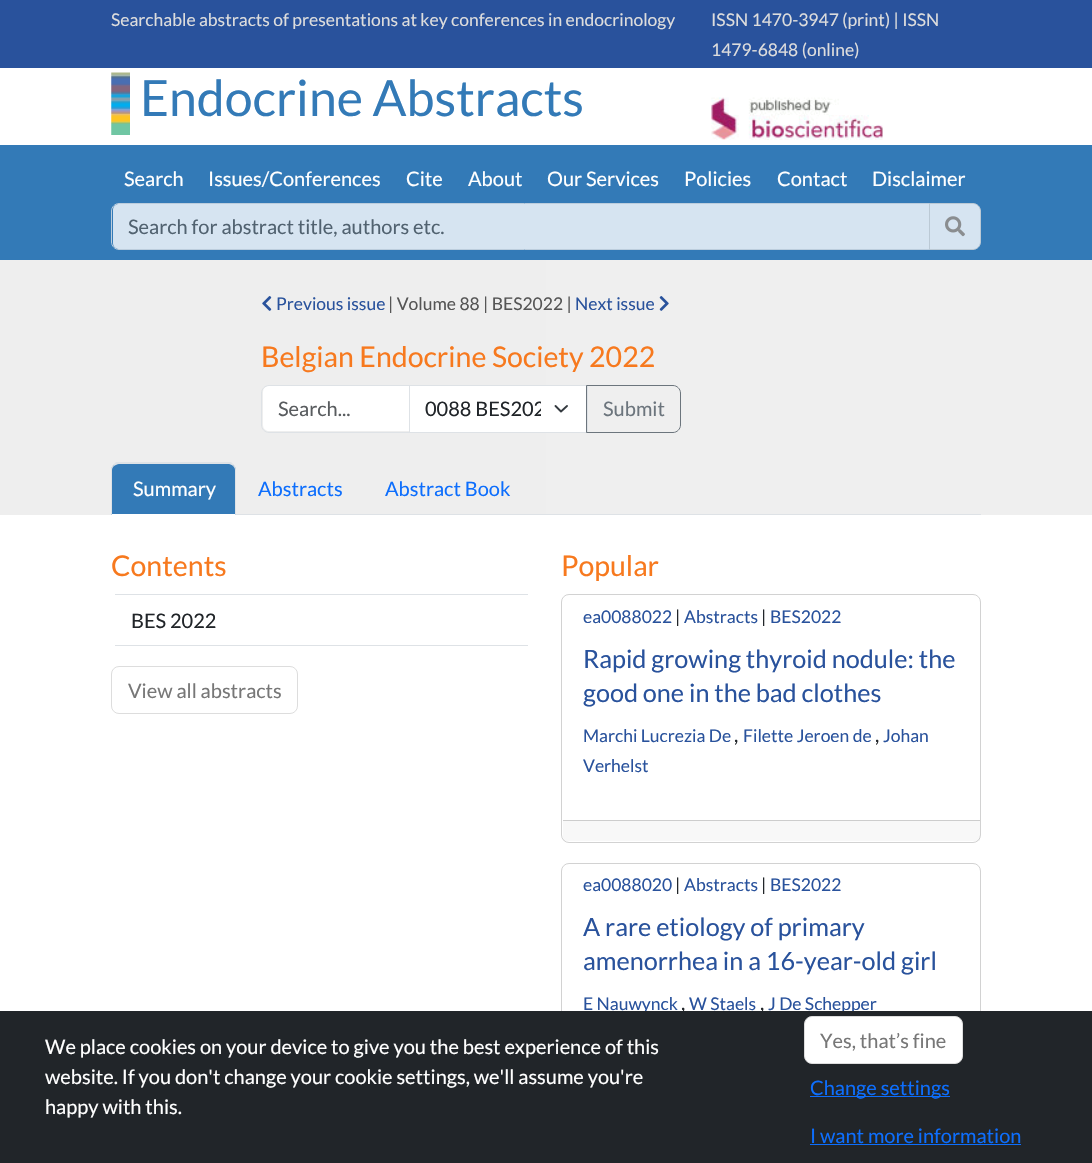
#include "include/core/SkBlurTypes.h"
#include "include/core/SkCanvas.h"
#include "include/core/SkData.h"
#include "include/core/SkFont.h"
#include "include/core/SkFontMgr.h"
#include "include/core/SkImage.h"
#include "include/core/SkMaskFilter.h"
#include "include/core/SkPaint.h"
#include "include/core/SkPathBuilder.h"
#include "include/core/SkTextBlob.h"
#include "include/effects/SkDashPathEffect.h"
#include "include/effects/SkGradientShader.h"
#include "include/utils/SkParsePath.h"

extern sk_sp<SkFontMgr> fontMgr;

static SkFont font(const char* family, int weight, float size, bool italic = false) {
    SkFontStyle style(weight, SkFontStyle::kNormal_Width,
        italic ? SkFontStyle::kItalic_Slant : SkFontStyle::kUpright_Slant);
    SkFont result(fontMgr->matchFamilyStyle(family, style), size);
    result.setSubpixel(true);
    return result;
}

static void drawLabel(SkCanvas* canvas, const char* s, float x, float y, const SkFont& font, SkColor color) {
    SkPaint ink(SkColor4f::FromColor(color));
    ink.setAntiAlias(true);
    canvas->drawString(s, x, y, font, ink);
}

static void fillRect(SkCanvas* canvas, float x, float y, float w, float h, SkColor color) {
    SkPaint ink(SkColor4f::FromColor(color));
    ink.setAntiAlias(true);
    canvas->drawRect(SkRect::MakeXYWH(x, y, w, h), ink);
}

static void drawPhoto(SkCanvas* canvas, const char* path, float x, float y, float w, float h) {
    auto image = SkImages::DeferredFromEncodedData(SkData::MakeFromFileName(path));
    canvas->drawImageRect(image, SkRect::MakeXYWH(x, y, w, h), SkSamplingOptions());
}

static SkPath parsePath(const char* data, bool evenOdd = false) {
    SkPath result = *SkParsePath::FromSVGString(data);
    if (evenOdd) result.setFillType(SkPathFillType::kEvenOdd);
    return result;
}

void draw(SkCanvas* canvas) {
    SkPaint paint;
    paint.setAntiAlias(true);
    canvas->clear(0xFFFFFFFF);
    fillRect(canvas, 0, 0, 1092, 68, 0xFF29529C);
    SkFont font1 = font("Lato", 400, 17.5f);
    drawLabel(canvas, "Searchable abstracts of presentations at key conferences in endocrinology", 111, 26, font1, 0xFFDDDDDD);
    drawLabel(canvas, "ISSN 1470-3947 (print) | ISSN", 711, 26, font1, 0xFFDDDDDD);
    drawLabel(canvas, "1479-6848 (online)", 711, 56, font1, 0xFFDDDDDD);
    drawPhoto(canvas, "assets/img1.png", 111, 72, 19, 63);
    SkFont font2 = font("Lato", 400, 50);
    drawLabel(canvas, "Endocrine Abstracts", 140, 116, font2, 0xFF337AB7);
    drawPhoto(canvas, "assets/img2.png", 711, 97, 172, 43);
    fillRect(canvas, 0, 145, 1092, 115, 0xFF337AB7);
    SkFont font3 = font("Lato", 400, 20);
    drawLabel(canvas, "Search", 124, 186, font3, 0xFFFFFFFF);
    drawLabel(canvas, "Issues/Conferences", 208, 186, font3, 0xFFFFFFFF);
    drawLabel(canvas, "Cite", 406, 186, font3, 0xFFFFFFFF);
    drawLabel(canvas, "About", 468, 186, font3, 0xFFFFFFFF);
    drawLabel(canvas, "Our Services", 547, 186, font3, 0xFFFFFFFF);
    drawLabel(canvas, "Policies", 684, 186, font3, 0xFFFFFFFF);
    drawLabel(canvas, "Contact", 777, 186, font3, 0xFFFFFFFF);
    drawLabel(canvas, "Disclaimer", 872, 186, font3, 0xFFFFFFFF);
    paint.setColor(0xFFD6E4F1);
    canvas->drawPath(parsePath("M119 204H929V249H119C115.5 249 113 246.5 113 243V210C113 206.5 115.5 204 119 204Z"), paint);
    paint.setStroke(true);
    paint.setStrokeWidth(1);
    paint.setColor(0xFFBCCDDD);
    canvas->drawPath(parsePath("M119 203.5H929.5V249.5H119C115 249.5 111.5 246 111.5 242V211C111.5 207 115 203.5 119 203.5Z"), paint);
    drawLabel(canvas, "Search for abstract title, authors etc.", 128, 234, font3, 0xFF516270);
    paint.setStroke(false);
    paint.setColor(0xFFD6E4F1);
    canvas->drawPath(parsePath("M929.5 203.5H973C977 203.5 980.5 207 980.5 211V242C980.5 246 977 249.5 973 249.5H929.5Z"), paint);
    paint.setStroke(true);
    paint.setColor(0xFFBBC9D5);
    canvas->drawPath(parsePath("M929.5 203.5H973C977 203.5 980.5 207 980.5 211V242C980.5 246 977 249.5 973 249.5H929.5Z"), paint);
    drawPhoto(canvas, "assets/img3.png", 945, 216, 20, 21);
    paint.setStroke(false);
    {
        const SkColor colors[] = {0xFFEEEEEE, 0xFFEFEFEF};
        const float stops[] = {0, 1};
        const SkPoint ends[] = {{0, 388}, {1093, 388}};
        paint.setShader(SkGradientShader::MakeLinear(ends, colors, stops, 2, SkTileMode::kClamp));
        paint.setAlpha(255);
    }
    canvas->drawRect(SkRect::MakeXYWH(0, 260, 1092, 255), paint);
    drawPhoto(canvas, "assets/img4.png", 262, 296, 10, 15);
    drawLabel(canvas, "Previous issue", 276, 310, font1, 0xFF29529C);
    drawLabel(canvas, "| Volume 88 | BES2022 |", 388, 310, font1, 0xFF555555);
    drawLabel(canvas, "Next issue", 575, 310, font1, 0xFF29529C);
    drawPhoto(canvas, "assets/img5.png", 659, 296, 10, 15);
    SkFont font4 = font("Lato", 400, 28.5f);
    drawLabel(canvas, "Belgian Endocrine Society 2022", 261, 367, font4, 0xFFF7791E);
    paint.setShader(nullptr);
    paint.setColor(0xFFFFFFFF);
    canvas->drawPath(parsePath("M269 386H409V431H269C265.5 431 263 428.5 263 425V392C263 388.5 265.5 386 269 386Z"), paint);
    paint.setStroke(true);
    paint.setColor(0xFFDEE2E6);
    canvas->drawPath(parsePath("M269 385.5H409.5V432.5H269C265 432.5 261.5 429 261.5 425V393C261.5 389 265 385.5 269 385.5Z"), paint);
    drawLabel(canvas, "Search...", 278, 416, font3, 0xFF595C5F);
    fillRect(canvas, 410, 386, 176, 46, 0xFFFFFFFF);
    paint.setStrokeWidth(1.9f);
    paint.setStrokeCap(SkPaint::kRound_Cap);
    paint.setStrokeJoin(SkPaint::kRound_Join);
    paint.setColor(0xFF343A40);
    canvas->drawPath(parsePath("M555.5 406L561 411.5L567 406"), paint);
    paint.setStrokeWidth(1);
    paint.setStrokeCap(SkPaint::kButt_Cap);
    paint.setStrokeJoin(SkPaint::kMiter_Join);
    paint.setColor(0xFFDEE2E6);
    canvas->drawRect(SkRect::MakeXYWH(409.5f, 385.5f, 178, 47), paint);
    canvas->save();
    canvas->clipRect(SkRect::MakeXYWH(425, 394, 116, 30));
    drawLabel(canvas, "0088 BES202", 425, 416, font3, 0xFF212529);
    canvas->restore();
    paint.setColor(0xFF6C757D);
    canvas->drawPath(parsePath("M586.5 385.5H673C677 385.5 680.5 389 680.5 393V425C680.5 429 677 432.5 673 432.5H586.5Z"), paint);
    drawLabel(canvas, "Submit", 603, 416, font3, 0xFF6C757D);
    fillRect(canvas, 236, 514, 745, 1, 0xFFDEE2E6);
    paint.setStroke(false);
    paint.setColor(0xFF337AB7);
    canvas->drawPath(parsePath("M119 463H228C232.5 463 236 466.5 236 471V515H111V471C111 466.5 114.5 463 119 463Z"), paint);
    paint.setColor(0xFFDEE2E6);
    canvas->drawPath(parsePath("M119 464C117 464 116 465 114 466L113 465L116 462H231L234 465L233 466C232 465 230 464 229 464Z"), paint);
    canvas->drawPath(parsePath("M234 465C235 466 236 468 236 470V515L235 514V470C235 468 234 467 233 466Z"), paint);
    paint.setColor(0xFFFFFFFF);
    canvas->drawPath(parsePath("M111 515H236L235 514H112Z"), paint);
    paint.setColor(0xFFDEE2E6);
    canvas->drawPath(parsePath("M111 515V468L113 465L114 466C113 467 112 468 112 470V514Z"), paint);
    drawLabel(canvas, "Summary", 133, 496, font3, 0xFFFFFFFF);
    drawLabel(canvas, "Abstracts", 258, 496, font3, 0xFF0D6EFD);
    drawLabel(canvas, "Abstract Book", 385, 496, font3, 0xFF0D6EFD);
    drawLabel(canvas, "Contents", 111, 576, font4, 0xFFF7791E);
    fillRect(canvas, 115, 594, 413, 1, 0xFFDEE2E6);
    fillRect(canvas, 115, 645, 413, 1, 0xFFDEE2E6);
    drawLabel(canvas, "BES 2022", 131, 628, font3, 0xFF212529);
    paint.setStroke(true);
    paint.setColor(0xFFDDDDDD);
    canvas->drawRoundRect(SkRect::MakeXYWH(111.5f, 666.5f, 186, 47), 7.5f, 7.5f, paint);
    drawLabel(canvas, "View all abstracts", 128, 698, font3, 0xFF777777);
    drawLabel(canvas, "Popular", 561, 576, font4, 0xFFF7791E);
    paint.setColor(0xFFD2D2D2);
    canvas->drawRoundRect(SkRect::MakeXYWH(561.5f, 594.5f, 419, 248), 7.5f, 7.5f, paint);
    drawLabel(canvas, "ea0088022", 583, 623, font1, 0xFF29529C);
    drawLabel(canvas, "|", 675, 623, font1, 0xFF212529);
    drawLabel(canvas, "Abstracts", 684, 623, font1, 0xFF29529C);
    drawLabel(canvas, "|", 761, 623, font1, 0xFF212529);
    drawLabel(canvas, "BES2022", 770, 623, font1, 0xFF29529C);
    SkFont font5 = font("Lato", 400, 25.2f);
    drawLabel(canvas, "Rapid growing thyroid nodule: the", 583, 668, font5, 0xFF29529C);
    drawLabel(canvas, "good one in the bad clothes", 583, 702, font5, 0xFF29529C);
    drawLabel(canvas, "Marchi Lucrezia De", 583, 742, font1, 0xFF29529C);
    drawLabel(canvas, ",", 734, 742, font3, 0xFF212529);
    drawLabel(canvas, "Filette Jeroen de", 743, 742, font1, 0xFF29529C);
    drawLabel(canvas, ",", 875, 742, font3, 0xFF212529);
    drawLabel(canvas, "Johan", 883, 742, font1, 0xFF29529C);
    drawLabel(canvas, "Verhelst", 583, 772, font1, 0xFF29529C);
    fillRect(canvas, 563, 821, 417, 20, 0x08212529);
    fillRect(canvas, 563, 820, 417, 1, 0xFFCDCDCD);
    canvas->drawRoundRect(SkRect::MakeXYWH(561.5f, 863.5f, 419, 216), 7.5f, 7.5f, paint);
    drawLabel(canvas, "ea0088020", 583, 891, font1, 0xFF29529C);
    drawLabel(canvas, "|", 675, 891, font1, 0xFF212529);
    drawLabel(canvas, "Abstracts", 684, 891, font1, 0xFF29529C);
    drawLabel(canvas, "|", 761, 891, font1, 0xFF212529);
    drawLabel(canvas, "BES2022", 770, 891, font1, 0xFF29529C);
    drawLabel(canvas, "A rare etiology of primary", 583, 936, font5, 0xFF29529C);
    drawLabel(canvas, "amenorrhea in a 16-year-old girl", 583, 970, font5, 0xFF29529C);
    drawLabel(canvas, "E Nauwynck", 583, 1010, font1, 0xFF29529C);
    drawLabel(canvas, ",", 681, 1010, font3, 0xFF212529);
    drawLabel(canvas, "W Staels", 689, 1010, font1, 0xFF29529C);
    drawLabel(canvas, ",", 760, 1010, font3, 0xFF212529);
    drawLabel(canvas, "J De Schepper", 768, 1010, font1, 0xFF29529C);
    fillRect(canvas, 0, 1011, 1092, 152, 0xFF212529);
    drawLabel(canvas, "We place cookies on your device to give you the best experience of this", 45, 1054, font3, 0xFFFFFFFF);
    drawLabel(canvas, "website. If you don't change your cookie settings, we'll assume you're", 45, 1084, font3, 0xFFFFFFFF);
    drawLabel(canvas, "happy with this.", 45, 1114, font3, 0xFFFFFFFF);
    paint.setStroke(false);
    paint.setColor(0xFFFFFFFF);
    canvas->drawRoundRect(SkRect::MakeXYWH(804.5f, 1016.5f, 158, 47), 7.5f, 7.5f, paint);
    paint.setStroke(true);
    paint.setColor(0xFFDDDDDD);
    canvas->drawRoundRect(SkRect::MakeXYWH(804.5f, 1016.5f, 158, 47), 7.5f, 7.5f, paint);
    drawLabel(canvas, "Yes, that’s fine", 820, 1048, font3, 0xFF777777);
    fillRect(canvas, 810, 1096, 140, 1, 0xFF0D6EFD);
    drawLabel(canvas, "Change settings", 810, 1095, font3, 0xFF0D6EFD);
    drawLabel(canvas, "I want more information", 810, 1143, font3, 0xFF0D6EFD);
    fillRect(canvas, 810, 1144, 211, 1, 0xFF0D6EFD);
}
